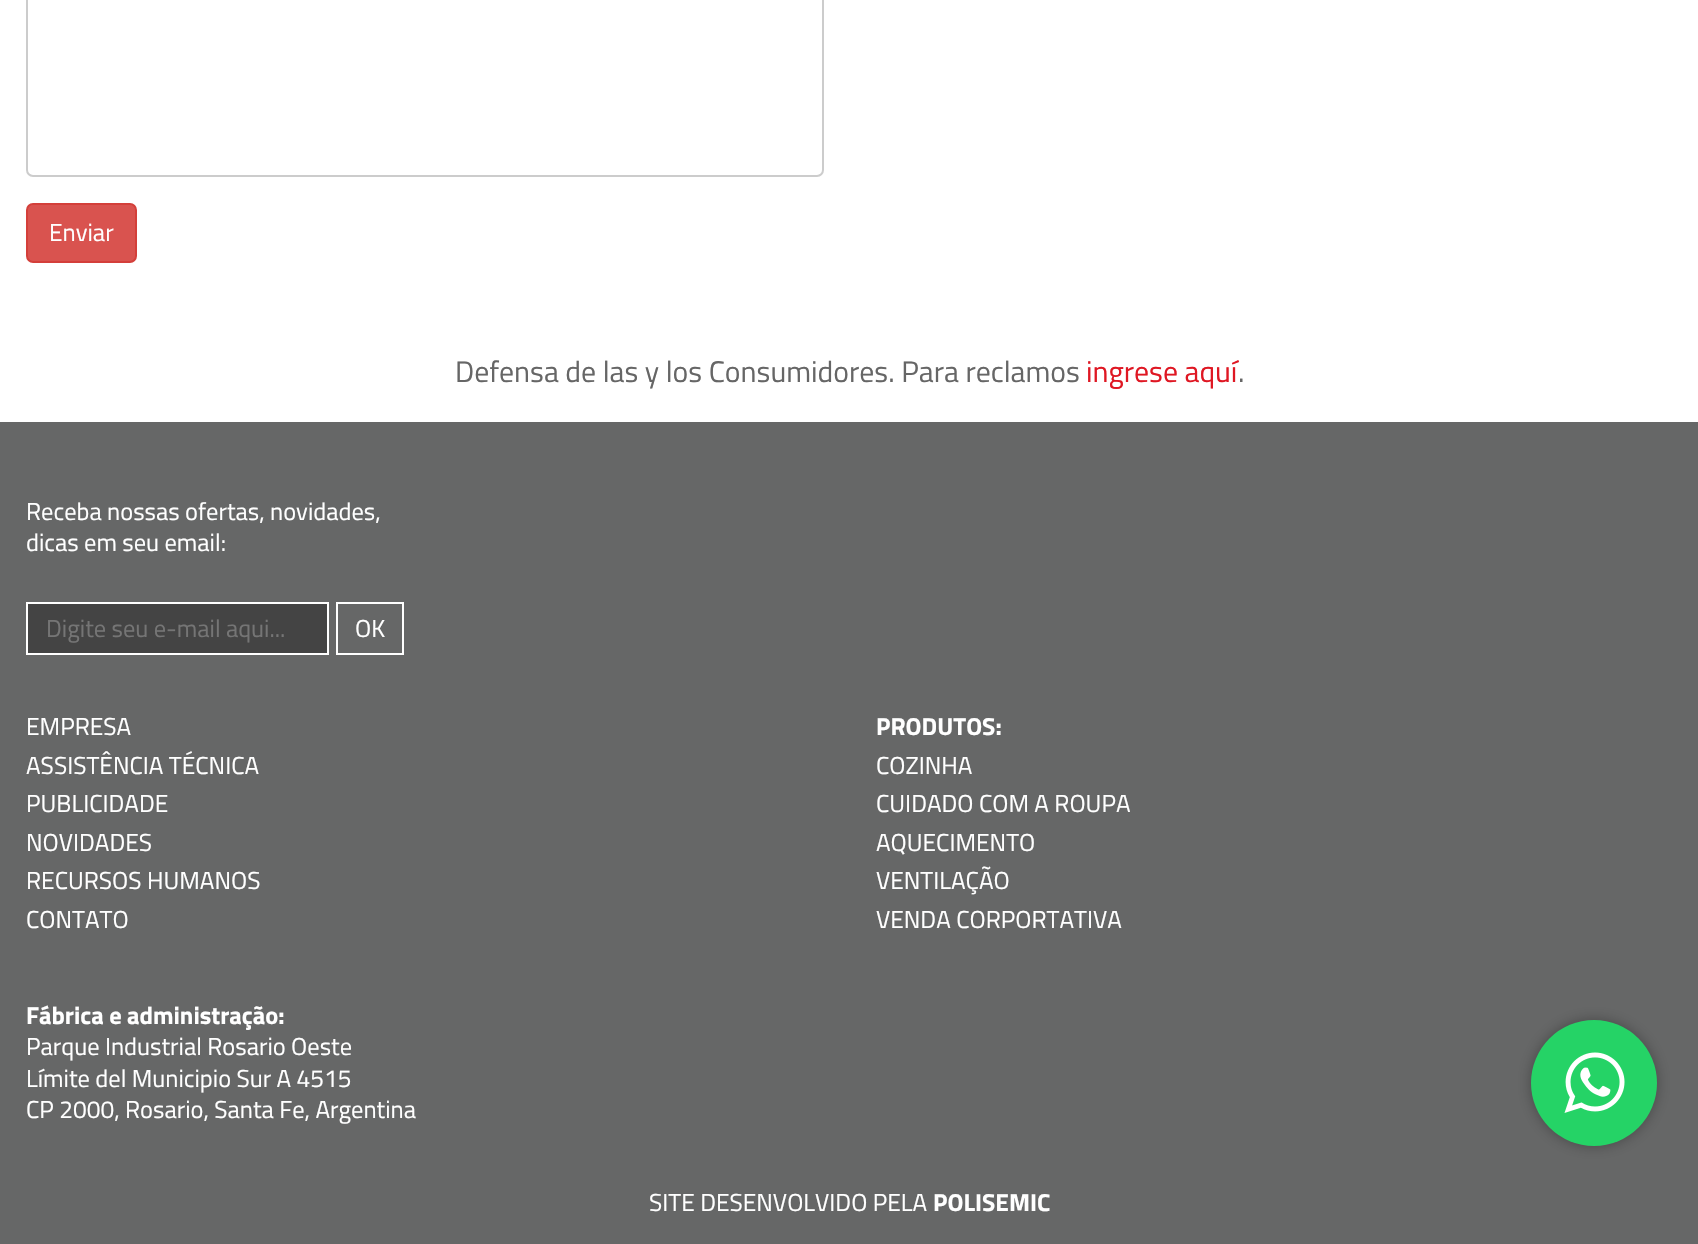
#include "include/core/SkBlurTypes.h"
#include "include/core/SkCanvas.h"
#include "include/core/SkData.h"
#include "include/core/SkFont.h"
#include "include/core/SkFontMgr.h"
#include "include/core/SkImage.h"
#include "include/core/SkMaskFilter.h"
#include "include/core/SkPaint.h"
#include "include/core/SkPathBuilder.h"
#include "include/core/SkTextBlob.h"
#include "include/effects/SkDashPathEffect.h"
#include "include/effects/SkGradientShader.h"
#include "include/utils/SkParsePath.h"

extern sk_sp<SkFontMgr> fontMgr;

static SkFont font(const char* family, int weight, float size, bool italic = false) {
    SkFontStyle style(weight, SkFontStyle::kNormal_Width,
        italic ? SkFontStyle::kItalic_Slant : SkFontStyle::kUpright_Slant);
    SkFont result(fontMgr->matchFamilyStyle(family, style), size);
    result.setSubpixel(true);
    return result;
}

static void drawLabel(SkCanvas* canvas, const char* s, float x, float y, const SkFont& font, SkColor color) {
    SkPaint ink(SkColor4f::FromColor(color));
    ink.setAntiAlias(true);
    canvas->drawString(s, x, y, font, ink);
}

static void fillRect(SkCanvas* canvas, float x, float y, float w, float h, SkColor color) {
    SkPaint ink(SkColor4f::FromColor(color));
    ink.setAntiAlias(true);
    canvas->drawRect(SkRect::MakeXYWH(x, y, w, h), ink);
}

static void drawPhoto(SkCanvas* canvas, const char* path, float x, float y, float w, float h) {
    auto image = SkImages::DeferredFromEncodedData(SkData::MakeFromFileName(path));
    canvas->drawImageRect(image, SkRect::MakeXYWH(x, y, w, h), SkSamplingOptions());
}

void draw(SkCanvas* canvas) {
    SkPaint paint;
    paint.setAntiAlias(true);
    canvas->clear(0xFFFFFFFF);
    paint.setStroke(true);
    paint.setStrokeWidth(2);
    paint.setColor(0xFFCCCCCC);
    canvas->drawRoundRect(SkRect::MakeXYWH(27, -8, 796, 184), 6, 6, paint);
    paint.setStroke(false);
    paint.setColor(0xFFD9534F);
    canvas->drawRoundRect(SkRect::MakeXYWH(27, 204, 109, 58), 6, 6, paint);
    paint.setStroke(true);
    paint.setColor(0xFFD43F3A);
    canvas->drawRoundRect(SkRect::MakeXYWH(27, 204, 109, 58), 6, 6, paint);
    SkFont font1 = font("Titillium Web", 400, 24.5f);
    drawLabel(canvas, "Enviar", 49, 241, font1, 0xFFFFFFFF);
    SkFont font2 = font("Titillium Web", 400, 29.75f);
    drawLabel(canvas, "Defensa de las y los Consumidores. Para reclamos", 455, 382, font2, 0xFF666666);
    drawLabel(canvas, "ingrese aquí", 1086, 382, font2, 0xFFDF1723);
    drawLabel(canvas, ".", 1238, 382, font2, 0xFF666666);
    fillRect(canvas, 0, 422, 1698, 822, 0xFF666767);
    drawLabel(canvas, "Receba nossas ofertas, novidades,", 26, 520, font1, 0xFFFFFFFF);
    drawLabel(canvas, "dicas em seu email:", 26, 551, font1, 0xFFFFFFFF);
    paint.setStroke(false);
    paint.setColor(0xFF444444);
    canvas->drawRect(SkRect::MakeXYWH(27, 603, 301, 51), paint);
    paint.setStroke(true);
    paint.setColor(0xFFFFFFFF);
    canvas->drawRect(SkRect::MakeXYWH(27, 603, 301, 51), paint);
    drawLabel(canvas, "Digite seu e-mail aqui...", 46, 637, font1, 0xFF757575);
    canvas->drawRect(SkRect::MakeXYWH(337, 603, 66, 51), paint);
    drawLabel(canvas, "OK", 355, 637, font1, 0xFFFFFFFF);
    drawLabel(canvas, "EMPRESA", 26, 735, font1, 0xFFFFFFFF);
    drawLabel(canvas, "ASSISTÊNCIA TÉCNICA", 26, 774, font1, 0xFFFFFFFF);
    drawLabel(canvas, "PUBLICIDADE", 26, 812, font1, 0xFFFFFFFF);
    drawLabel(canvas, "NOVIDADES", 26, 851, font1, 0xFFFFFFFF);
    drawLabel(canvas, "RECURSOS HUMANOS", 26, 889, font1, 0xFFFFFFFF);
    drawLabel(canvas, "CONTATO", 26, 928, font1, 0xFFFFFFFF);
    SkFont font3 = font("Titillium Web", 700, 24.5f);
    drawLabel(canvas, "PRODUTOS:", 876, 735, font3, 0xFFFFFFFF);
    drawLabel(canvas, "COZINHA", 876, 774, font1, 0xFFFFFFFF);
    drawLabel(canvas, "CUIDADO COM A ROUPA", 876, 812, font1, 0xFFFFFFFF);
    drawLabel(canvas, "AQUECIMENTO", 876, 851, font1, 0xFFFFFFFF);
    drawLabel(canvas, "VENTILAÇÃO", 876, 889, font1, 0xFFFFFFFF);
    drawLabel(canvas, "VENDA CORPORTATIVA", 876, 928, font1, 0xFFFFFFFF);
    drawLabel(canvas, "Fábrica e administração:", 26, 1024, font3, 0xFFFFFFFF);
    drawLabel(canvas, "Parque Industrial Rosario Oeste", 26, 1055, font1, 0xFFFFFFFF);
    drawLabel(canvas, "Límite del Municipio Sur A 4515", 26, 1087, font1, 0xFFFFFFFF);
    drawLabel(canvas, "CP 2000, Rosario, Santa Fe, Argentina", 26, 1118, font1, 0xFFFFFFFF);
    drawLabel(canvas, "SITE DESENVOLVIDO PELA", 649, 1211, font1, 0xFFFFFFFF);
    drawLabel(canvas, "POLISEMIC", 933, 1211, font3, 0xFFFFFFFF);
    paint.setStroke(false);
    paint.setColor(0x4F000000);
    paint.setMaskFilter(SkMaskFilter::MakeBlur(kNormal_SkBlurStyle, 7));
    canvas->drawRoundRect(SkRect::MakeXYWH(1531, 1020, 126, 126), 63, 63, paint);
    paint.setMaskFilter(nullptr);
    paint.setColor(0xFF25D366);
    canvas->drawCircle(1594, 1083, 63, paint);
    drawPhoto(canvas, "assets/img1.png", 1564, 1052, 61, 61);
}
